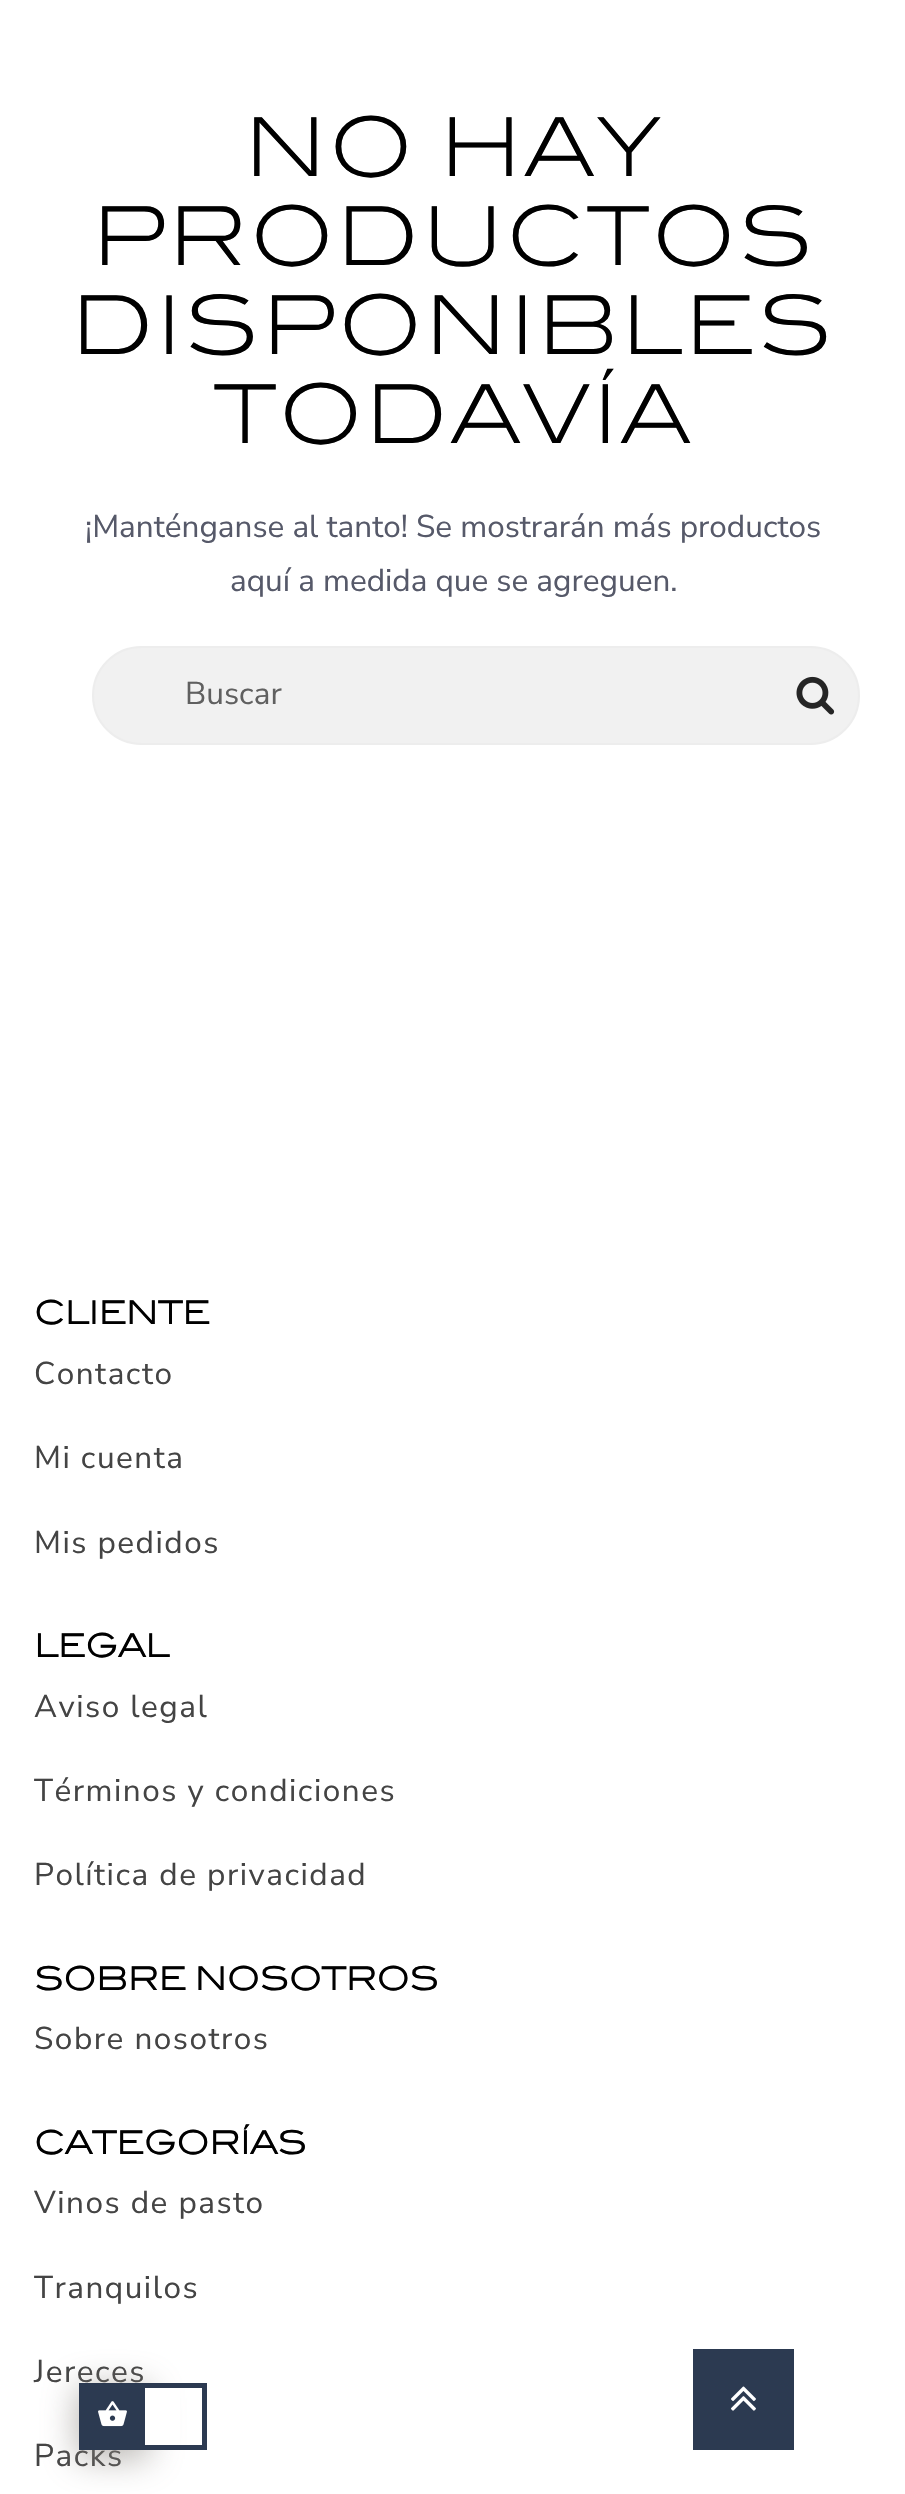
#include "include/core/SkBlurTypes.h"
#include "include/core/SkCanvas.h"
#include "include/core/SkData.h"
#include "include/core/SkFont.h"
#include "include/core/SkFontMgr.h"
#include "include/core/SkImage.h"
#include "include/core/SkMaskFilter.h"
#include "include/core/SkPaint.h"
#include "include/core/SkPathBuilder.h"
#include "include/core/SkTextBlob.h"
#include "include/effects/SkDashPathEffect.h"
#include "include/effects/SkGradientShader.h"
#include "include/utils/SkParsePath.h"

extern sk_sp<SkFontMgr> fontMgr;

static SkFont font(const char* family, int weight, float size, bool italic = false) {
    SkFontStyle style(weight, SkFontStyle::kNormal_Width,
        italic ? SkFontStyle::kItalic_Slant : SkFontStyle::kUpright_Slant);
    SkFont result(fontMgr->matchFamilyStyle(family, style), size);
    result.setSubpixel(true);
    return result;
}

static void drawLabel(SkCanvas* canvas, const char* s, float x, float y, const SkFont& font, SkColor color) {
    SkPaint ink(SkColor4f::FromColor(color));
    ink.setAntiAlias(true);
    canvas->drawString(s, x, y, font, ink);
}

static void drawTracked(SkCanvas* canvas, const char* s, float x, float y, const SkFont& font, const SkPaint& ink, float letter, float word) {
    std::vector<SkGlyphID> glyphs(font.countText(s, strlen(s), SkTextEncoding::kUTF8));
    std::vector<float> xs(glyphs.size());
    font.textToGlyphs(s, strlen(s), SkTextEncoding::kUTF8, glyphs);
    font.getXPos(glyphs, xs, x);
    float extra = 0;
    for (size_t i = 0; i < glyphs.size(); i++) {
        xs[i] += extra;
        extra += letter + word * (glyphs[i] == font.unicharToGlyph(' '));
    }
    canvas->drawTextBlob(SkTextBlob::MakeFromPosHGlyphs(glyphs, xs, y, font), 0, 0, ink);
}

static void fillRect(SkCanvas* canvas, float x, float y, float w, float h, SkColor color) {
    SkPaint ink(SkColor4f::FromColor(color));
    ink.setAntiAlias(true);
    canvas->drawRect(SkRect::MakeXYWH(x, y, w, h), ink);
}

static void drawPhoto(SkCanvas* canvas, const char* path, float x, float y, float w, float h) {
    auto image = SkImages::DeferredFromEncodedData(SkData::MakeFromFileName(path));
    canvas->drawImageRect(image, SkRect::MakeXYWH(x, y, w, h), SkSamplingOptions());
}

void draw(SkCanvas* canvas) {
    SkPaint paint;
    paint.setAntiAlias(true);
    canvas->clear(0xFFFFFFFF);
    SkFont font1 = font("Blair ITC", 300, 81);
    paint.setColor(0xFF000000);
    drawTracked(canvas, "NO HAY", 244, 176, font1, paint, 2.25f, 0);
    drawTracked(canvas, "PRODUCTOS", 92, 265, font1, paint, 2.25f, 0);
    drawTracked(canvas, "DISPONIBLES", 71, 354, font1, paint, 2.25f, 0);
    drawTracked(canvas, "TODAVÍA", 214, 443, font1, paint, 2.25f, 0);
    SkFont font2 = font("Nunito Sans", 400, 31.5f);
    drawLabel(canvas, "¡Manténganse al tanto! Se mostrarán más productos", 85, 537, font2, 0xFF565969);
    drawLabel(canvas, "aquí a medida que se agreguen.", 230, 591, font2, 0xFF565969);
    paint.setColor(0xFFF1F1F1);
    canvas->drawRoundRect(SkRect::MakeXYWH(93, 647, 766, 97), 48.5f, 48.5f, paint);
    paint.setStroke(true);
    paint.setStrokeWidth(2);
    paint.setColor(0xFFEDEDED);
    canvas->drawRoundRect(SkRect::MakeXYWH(93, 647, 766, 97), 48.5f, 48.5f, paint);
    drawLabel(canvas, "Buscar", 185, 704, font2, 0xFF606060);
    drawPhoto(canvas, "assets/img1.png", 796, 676, 39, 39);
    SkFont font3 = font("Blair ITC", 700, 31.5f);
    drawLabel(canvas, "CLIENTE", 34, 1324, font3, 0xFF000000);
    paint.setStroke(false);
    paint.setColor(0xFF444444);
    drawTracked(canvas, "Contacto", 34, 1384, font2, paint, 1.5f, 0);
    drawTracked(canvas, "Mi cuenta", 34, 1468, font2, paint, 1.5f, 0);
    drawTracked(canvas, "Mis pedidos", 34, 1553, font2, paint, 1.5f, 0);
    drawLabel(canvas, "LEGAL", 34, 1657, font3, 0xFF000000);
    drawTracked(canvas, "Aviso legal", 34, 1717, font2, paint, 1.5f, 0);
    drawTracked(canvas, "Términos y condiciones", 34, 1801, font2, paint, 1.5f, 0);
    drawTracked(canvas, "Política de privacidad", 34, 1885, font2, paint, 1.5f, 0);
    drawLabel(canvas, "SOBRE NOSOTROS", 34, 1990, font3, 0xFF000000);
    drawTracked(canvas, "Sobre nosotros", 34, 2049, font2, paint, 1.5f, 0);
    drawLabel(canvas, "CATEGORÍAS", 34, 2154, font3, 0xFF000000);
    drawTracked(canvas, "Vinos de pasto", 34, 2213, font2, paint, 1.5f, 0);
    drawTracked(canvas, "Tranquilos", 34, 2298, font2, paint, 1.5f, 0);
    drawTracked(canvas, "Jereces", 34, 2382, font2, paint, 1.5f, 0);
    drawTracked(canvas, "Packs", 34, 2466, font2, paint, 1.5f, 0);
    fillRect(canvas, 693, 2349, 101, 101, 0xFF2C3A51);
    drawPhoto(canvas, "assets/img2.png", 731, 2386, 25, 25);
    paint.setColor(0x9E8E8982);
    paint.setMaskFilter(SkMaskFilter::MakeBlur(kNormal_SkBlurStyle, 17));
    canvas->drawRect(SkRect::MakeXYWH(77, 2387, 72, 72), paint);
    paint.setMaskFilter(nullptr);
    fillRect(canvas, 79, 2383, 61, 67, 0xFF2C3A51);
    drawPhoto(canvas, "assets/img3.png", 98, 2401, 29, 26);
    fillRect(canvas, 145, 2388, 35, 57, 0xFFFFFFFF);
    paint.setStroke(true);
    paint.setStrokeWidth(5);
    paint.setColor(0xFF2C3A51);
    canvas->drawRect(SkRect::MakeXYWH(142.5f, 2385.5f, 62, 62), paint);
}
